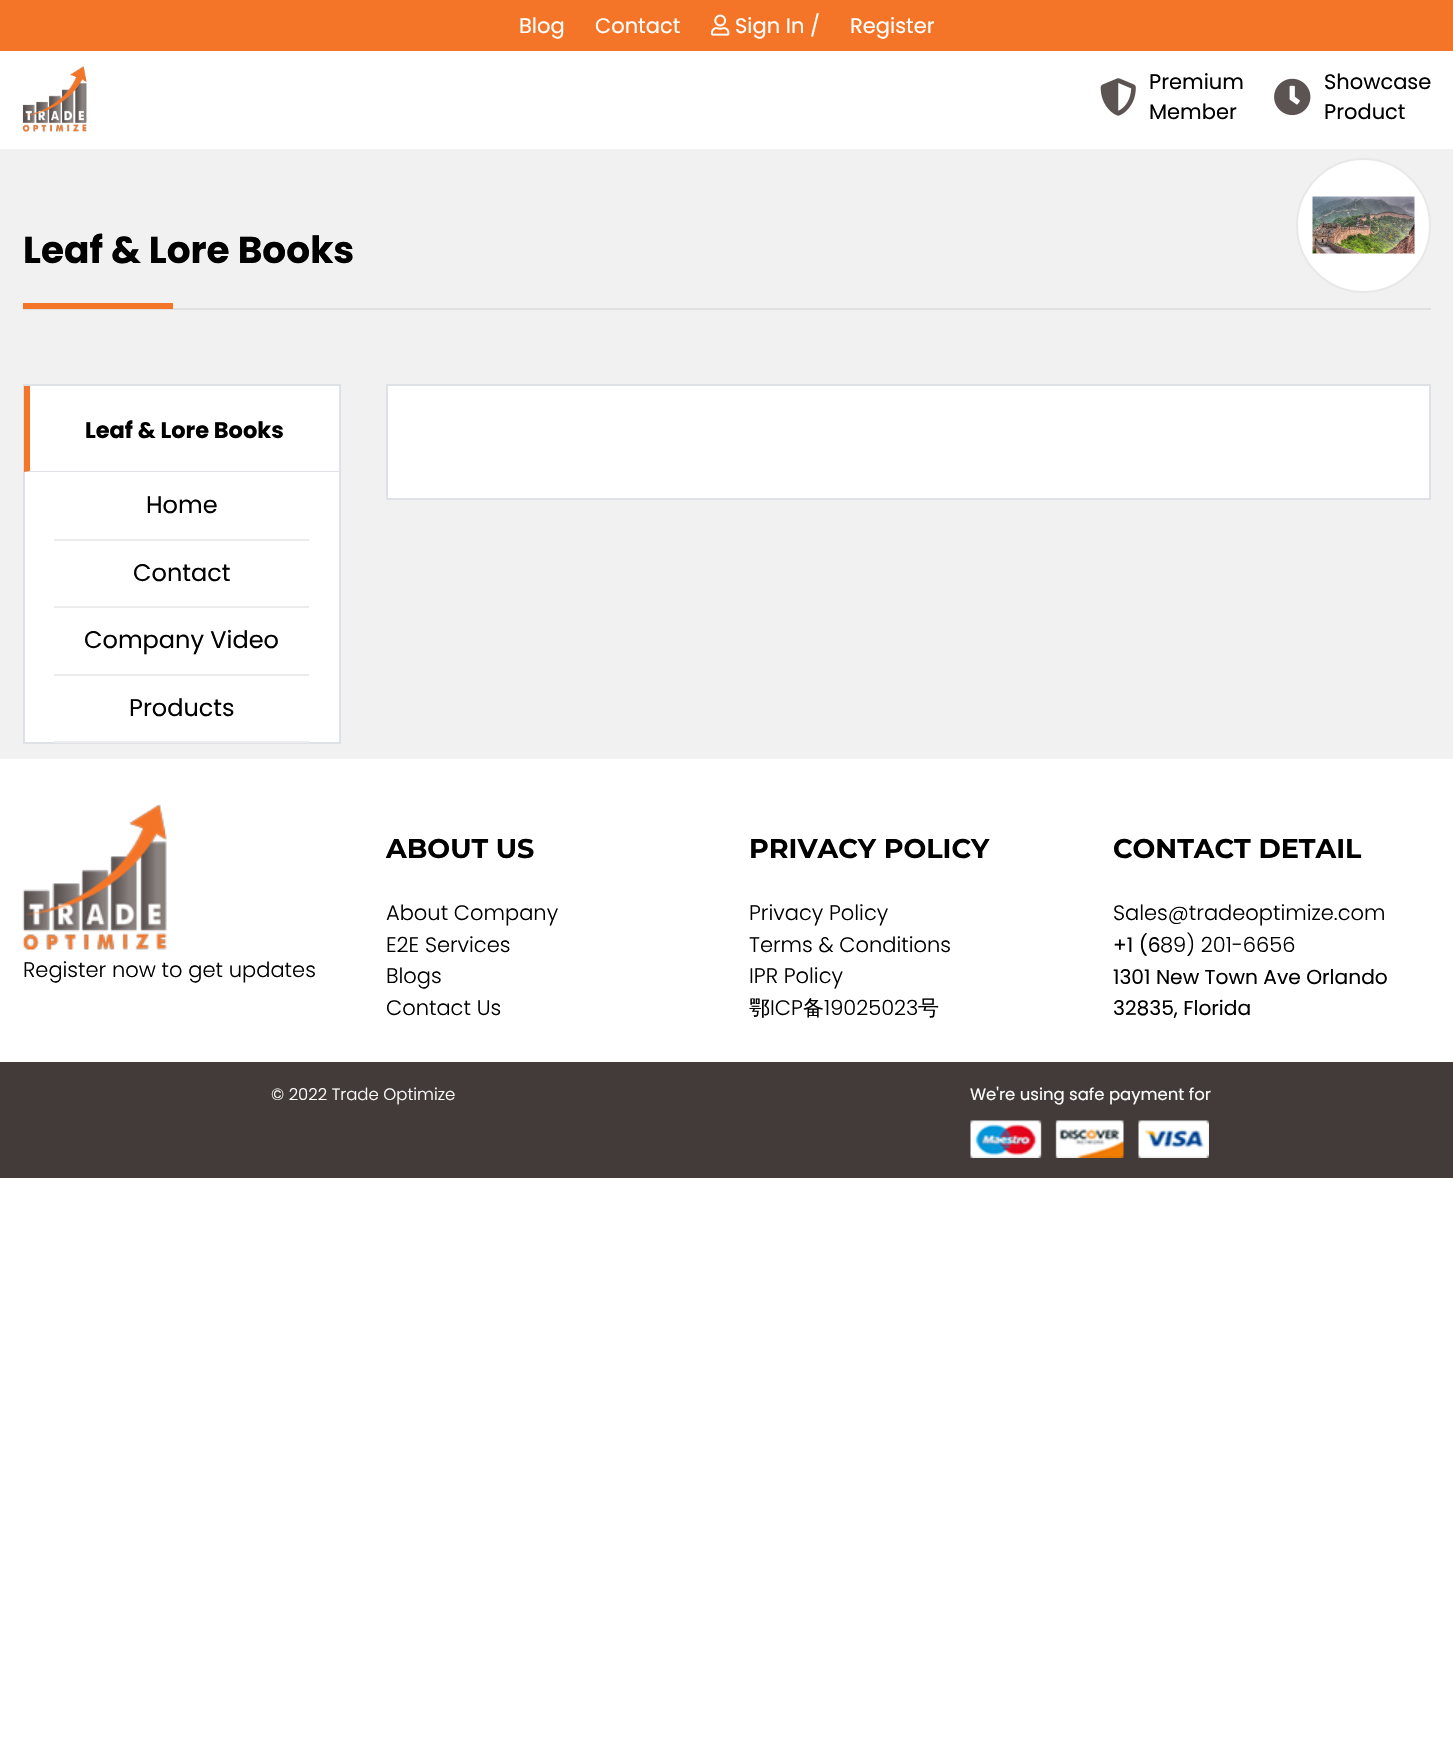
#include "include/core/SkBlurTypes.h"
#include "include/core/SkCanvas.h"
#include "include/core/SkData.h"
#include "include/core/SkFont.h"
#include "include/core/SkFontMgr.h"
#include "include/core/SkImage.h"
#include "include/core/SkMaskFilter.h"
#include "include/core/SkPaint.h"
#include "include/core/SkPathBuilder.h"
#include "include/core/SkTextBlob.h"
#include "include/effects/SkDashPathEffect.h"
#include "include/effects/SkGradientShader.h"
#include "include/utils/SkParsePath.h"

extern sk_sp<SkFontMgr> fontMgr;

static SkFont font(const char* family, int weight, float size, bool italic = false) {
    SkFontStyle style(weight, SkFontStyle::kNormal_Width,
        italic ? SkFontStyle::kItalic_Slant : SkFontStyle::kUpright_Slant);
    SkFont result(fontMgr->matchFamilyStyle(family, style), size);
    result.setSubpixel(true);
    return result;
}

static void drawLabel(SkCanvas* canvas, const char* s, float x, float y, const SkFont& font, SkColor color) {
    SkPaint ink(SkColor4f::FromColor(color));
    ink.setAntiAlias(true);
    canvas->drawString(s, x, y, font, ink);
}

static void fillRect(SkCanvas* canvas, float x, float y, float w, float h, SkColor color) {
    SkPaint ink(SkColor4f::FromColor(color));
    ink.setAntiAlias(true);
    canvas->drawRect(SkRect::MakeXYWH(x, y, w, h), ink);
}

static void drawPhoto(SkCanvas* canvas, const char* path, float x, float y, float w, float h) {
    auto image = SkImages::DeferredFromEncodedData(SkData::MakeFromFileName(path));
    canvas->drawImageRect(image, SkRect::MakeXYWH(x, y, w, h), SkSamplingOptions());
}

static SkPath parsePath(const char* data, bool evenOdd = false) {
    SkPath result = *SkParsePath::FromSVGString(data);
    if (evenOdd) result.setFillType(SkPathFillType::kEvenOdd);
    return result;
}

void draw(SkCanvas* canvas) {
    SkPaint paint;
    paint.setAntiAlias(true);
    canvas->clear(0xFFFFFFFF);
    fillRect(canvas, 0, 0, 1453, 51, 0xFFF47527);
    SkFont font1 = font("Poppins", 400, 21);
    drawLabel(canvas, "Blog", 519, 33, font1, 0xFFFFFFFF);
    drawLabel(canvas, "Contact", 595, 33, font1, 0xFFFFFFFF);
    drawPhoto(canvas, "assets/img1.png", 711, 14, 19, 22);
    drawLabel(canvas, "Sign In /", 735, 33, font1, 0xFFFFFFFF);
    drawLabel(canvas, "Register", 850, 33, font1, 0xFFFFFFFF);
    drawPhoto(canvas, "assets/img2.png", 22, 66, 65, 66);
    drawPhoto(canvas, "assets/img3.png", 1100, 78, 36, 38);
    drawLabel(canvas, "Premium", 1149, 89, font1, 0xFF000000);
    drawLabel(canvas, "Member", 1149, 119, font1, 0xFF000000);
    drawPhoto(canvas, "assets/img4.png", 1274, 78, 37, 38);
    drawLabel(canvas, "Showcase", 1324, 89, font1, 0xFF000000);
    drawLabel(canvas, "Product", 1324, 119, font1, 0xFF000000);
    fillRect(canvas, 0, 149, 1453, 610, 0xFFF1F1F1);
    fillRect(canvas, 23, 308, 1408, 2, 0xFFE0E0E0);
    SkFont font2 = font("Poppins", 700, 37.5f);
    drawLabel(canvas, "Leaf & Lore Books", 23, 263, font2, 0xFF000000);
    fillRect(canvas, 23, 303, 150, 6, 0xFFF47527);
    paint.setColor(0xFFFFFFFF);
    canvas->drawCircle(1363.5f, 225.5f, 66.5f, paint);
    paint.setStroke(true);
    paint.setStrokeWidth(2);
    paint.setColor(0xFFE8E8E8);
    canvas->drawCircle(1363.5f, 225.5f, 66.5f, paint);
    drawPhoto(canvas, "assets/img5.png", 1312, 196, 103, 58);
    paint.setStroke(false);
    paint.setColor(0xFFFFFFFF);
    canvas->drawRect(SkRect::MakeXYWH(24, 385, 316, 358), paint);
    paint.setStroke(true);
    paint.setColor(0xFFDEE2E6);
    canvas->drawRect(SkRect::MakeXYWH(24, 385, 316, 358), paint);
    paint.setStroke(false);
    canvas->drawPath(parsePath("M339 472H24L30 471H339Z"), paint);
    paint.setColor(0xFFF47527);
    canvas->drawPath(parsePath("M24 472V386H30V471Z"), paint);
    SkFont font3 = font("Poppins", 700, 22.5f);
    drawLabel(canvas, "Leaf & Lore Books", 85, 438, font3, 0xFF000000);
    fillRect(canvas, 54, 539, 255, 2, 0xFFECECEC);
    SkFont font4 = font("Poppins", 400, 24);
    drawLabel(canvas, "Home", 146, 513, font4, 0xFF000000);
    fillRect(canvas, 54, 606, 255, 2, 0xFFECECEC);
    drawLabel(canvas, "Contact", 133, 581, font4, 0xFF000000);
    fillRect(canvas, 54, 674, 255, 2, 0xFFECECEC);
    drawLabel(canvas, "Company Video", 84, 648, font4, 0xFF000000);
    fillRect(canvas, 54, 741, 255, 2, 0xFFECECEC);
    drawLabel(canvas, "Products", 129, 716, font4, 0xFF000000);
    paint.setColor(0xFFFFFFFF);
    canvas->drawRect(SkRect::MakeXYWH(387, 385, 1043, 114), paint);
    paint.setStroke(true);
    paint.setColor(0xFFDEE2E6);
    canvas->drawRect(SkRect::MakeXYWH(387, 385, 1043, 114), paint);
    drawPhoto(canvas, "assets/img6.png", 22, 804, 145, 147);
    SkFont font5 = font("Poppins", 300, 21);
    drawLabel(canvas, "Register now to get updates", 23, 977, font5, 0xFF000000);
    SkFont font6 = font("Montserrat", 700, 27);
    drawLabel(canvas, "ABOUT US", 386, 858, font6, 0xFF000000);
    drawLabel(canvas, "About Company", 386, 920, font5, 0xFF000000);
    drawLabel(canvas, "E2E Services", 386, 952, font5, 0xFF000000);
    drawLabel(canvas, "Blogs", 386, 983, font5, 0xFF000000);
    drawLabel(canvas, "Contact Us", 386, 1015, font5, 0xFF000000);
    drawLabel(canvas, "PRIVACY POLICY", 749, 858, font6, 0xFF000000);
    drawLabel(canvas, "Privacy Policy", 749, 920, font5, 0xFF000000);
    drawLabel(canvas, "Terms & Conditions", 749, 952, font5, 0xFF000000);
    drawLabel(canvas, "IPR Policy", 749, 983, font5, 0xFF000000);
    SkFont font7 = font("WenQuanYi Zen Hei", 500, 21);
    drawLabel(canvas, "鄂", 749, 1015, font7, 0xFF000000);
    drawLabel(canvas, "ICP", 770, 1015, font5, 0xFF000000);
    drawLabel(canvas, "备", 803, 1015, font7, 0xFF000000);
    drawLabel(canvas, "19025023", 824, 1015, font5, 0xFF000000);
    drawLabel(canvas, "号", 918, 1015, font7, 0xFF000000);
    drawLabel(canvas, "CONTACT DETAIL", 1113, 858, font6, 0xFF000000);
    drawLabel(canvas, "Sales@tradeoptimize.com", 1113, 920, font5, 0xFF000000);
    SkFont font8 = font("Poppins", 400, 20.2f);
    drawLabel(canvas, "+1 (6", 1113, 952, font8, 0xFF000000);
    drawLabel(canvas, "89) 201-6656", 1160, 952, font5, 0xFF000000);
    drawLabel(canvas, "1301 New Town Ave Orlando", 1113, 984, font8, 0xFF000000);
    drawLabel(canvas, "32835, Florida", 1113, 1015, font8, 0xFF000000);
    fillRect(canvas, 0, 1062, 1453, 116, 0xFF423B39);
    SkFont font9 = font("Poppins", 300, 16.5f);
    drawLabel(canvas, "© 2022 Trade Optimize", 271, 1100, font9, 0xFFFFFFFF);
    SkFont font10 = font("Poppins", 400, 16.5f);
    drawLabel(canvas, "We're using safe payment for", 970, 1100, font10, 0xFFFFFFFF);
    drawPhoto(canvas, "assets/img7.png", 970, 1120, 239, 38);
}
